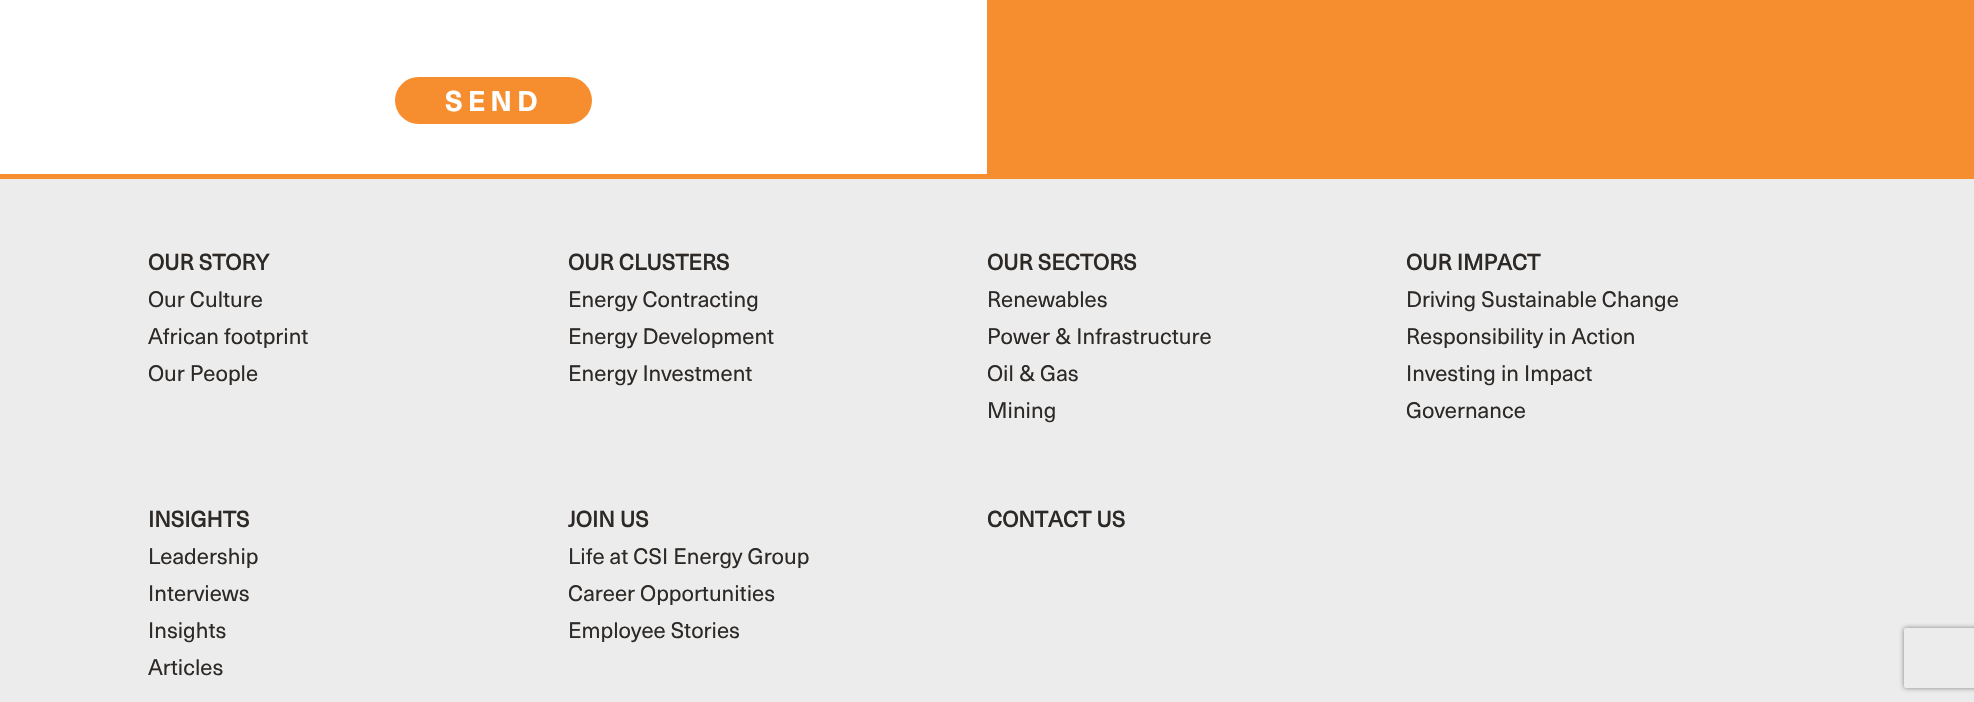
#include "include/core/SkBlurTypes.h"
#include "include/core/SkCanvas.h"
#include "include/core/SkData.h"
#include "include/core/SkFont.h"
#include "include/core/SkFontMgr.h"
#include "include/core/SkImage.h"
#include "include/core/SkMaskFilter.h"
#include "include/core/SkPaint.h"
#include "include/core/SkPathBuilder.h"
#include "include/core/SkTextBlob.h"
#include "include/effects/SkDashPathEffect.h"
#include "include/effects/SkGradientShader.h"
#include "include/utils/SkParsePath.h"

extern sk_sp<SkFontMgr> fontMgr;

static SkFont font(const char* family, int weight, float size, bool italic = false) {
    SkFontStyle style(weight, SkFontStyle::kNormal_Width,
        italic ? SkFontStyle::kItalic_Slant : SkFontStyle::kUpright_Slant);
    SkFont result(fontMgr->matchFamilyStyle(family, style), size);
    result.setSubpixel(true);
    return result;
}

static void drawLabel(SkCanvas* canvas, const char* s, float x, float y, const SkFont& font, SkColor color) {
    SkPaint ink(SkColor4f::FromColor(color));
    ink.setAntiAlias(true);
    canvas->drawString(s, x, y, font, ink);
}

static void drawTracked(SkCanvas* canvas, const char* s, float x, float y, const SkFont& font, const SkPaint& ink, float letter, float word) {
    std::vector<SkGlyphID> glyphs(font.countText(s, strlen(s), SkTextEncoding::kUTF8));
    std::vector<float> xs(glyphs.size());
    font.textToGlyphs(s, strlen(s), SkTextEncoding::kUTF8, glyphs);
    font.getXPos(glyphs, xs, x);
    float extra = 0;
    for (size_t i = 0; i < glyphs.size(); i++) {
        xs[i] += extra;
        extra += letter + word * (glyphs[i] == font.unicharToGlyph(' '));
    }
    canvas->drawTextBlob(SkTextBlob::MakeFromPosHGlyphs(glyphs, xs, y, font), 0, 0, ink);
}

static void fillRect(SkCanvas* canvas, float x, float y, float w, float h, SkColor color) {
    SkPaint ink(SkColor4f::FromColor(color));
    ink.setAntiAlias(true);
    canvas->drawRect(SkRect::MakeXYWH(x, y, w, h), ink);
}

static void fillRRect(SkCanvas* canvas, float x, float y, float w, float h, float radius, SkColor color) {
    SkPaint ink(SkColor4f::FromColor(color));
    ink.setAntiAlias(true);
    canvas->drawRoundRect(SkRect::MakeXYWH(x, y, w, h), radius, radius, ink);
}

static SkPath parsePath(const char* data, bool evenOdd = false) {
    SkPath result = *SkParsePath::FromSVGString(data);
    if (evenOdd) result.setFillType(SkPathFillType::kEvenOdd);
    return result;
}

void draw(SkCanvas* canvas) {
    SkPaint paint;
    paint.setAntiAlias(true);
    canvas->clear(0xFFFFFFFF);
    fillRRect(canvas, 395, 77, 197, 47, 23.5f, 0xFFF68D2E);
    SkFont font1 = font("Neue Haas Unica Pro", 700, 28);
    paint.setColor(0xFFFFFFFF);
    drawTracked(canvas, "SEND", 445, 111, font1, paint, 5, 0);
    fillRect(canvas, 987, 0, 987, 174, 0xFFF68D2E);
    fillRect(canvas, 0, 174, 1974, 5, 0xFFF68D2E);
    fillRect(canvas, 0, 179, 1974, 523, 0xFFECECEC);
    SkFont font2 = font("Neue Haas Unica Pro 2", 700, 22);
    drawLabel(canvas, "OUR STORY", 148, 270, font2, 0xFF2D2926);
    SkFont font3 = font("Neue Haas Unica Pro", 400, 22);
    drawLabel(canvas, "Our Culture", 148, 307, font3, 0xFF2D2926);
    drawLabel(canvas, "African footprint", 148, 344, font3, 0xFF2D2926);
    drawLabel(canvas, "Our People", 148, 381, font3, 0xFF2D2926);
    drawLabel(canvas, "OUR CLUSTERS", 568, 270, font2, 0xFF2D2926);
    drawLabel(canvas, "Energy Contracting", 568, 307, font3, 0xFF2D2926);
    drawLabel(canvas, "Energy Development", 568, 344, font3, 0xFF2D2926);
    drawLabel(canvas, "Energy Investment", 568, 381, font3, 0xFF2D2926);
    drawLabel(canvas, "OUR SECTORS", 987, 270, font2, 0xFF2D2926);
    drawLabel(canvas, "Renewables", 987, 307, font3, 0xFF2D2926);
    drawLabel(canvas, "Power & Infrastructure", 987, 344, font3, 0xFF2D2926);
    drawLabel(canvas, "Oil & Gas", 987, 381, font3, 0xFF2D2926);
    drawLabel(canvas, "Mining", 987, 418, font3, 0xFF2D2926);
    drawLabel(canvas, "OUR IMPACT", 1406, 270, font2, 0xFF2D2926);
    drawLabel(canvas, "Driving Sustainable Change", 1406, 307, font3, 0xFF2D2926);
    drawLabel(canvas, "Responsibility in Action", 1406, 344, font3, 0xFF2D2926);
    drawLabel(canvas, "Investing in Impact", 1406, 381, font3, 0xFF2D2926);
    drawLabel(canvas, "Governance", 1406, 418, font3, 0xFF2D2926);
    drawLabel(canvas, "INSIGHTS", 148, 527, font2, 0xFF2D2926);
    drawLabel(canvas, "Leadership", 148, 564, font3, 0xFF2D2926);
    drawLabel(canvas, "Interviews", 148, 601, font3, 0xFF2D2926);
    drawLabel(canvas, "Insights", 148, 638, font3, 0xFF2D2926);
    drawLabel(canvas, "Articles", 148, 675, font3, 0xFF2D2926);
    drawLabel(canvas, "JOIN US", 568, 527, font2, 0xFF2D2926);
    drawLabel(canvas, "Life at CSI Energy Group", 568, 564, font3, 0xFF2D2926);
    drawLabel(canvas, "Career Opportunities", 568, 601, font3, 0xFF2D2926);
    drawLabel(canvas, "Employee Stories", 568, 638, font3, 0xFF2D2926);
    drawLabel(canvas, "CONTACT US", 987, 527, font2, 0xFF2D2926);
    canvas->save();
    canvas->clipPath(parsePath("M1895 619H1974V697H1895ZM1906 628H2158C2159 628 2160 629 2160 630V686C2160 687 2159 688 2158 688H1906C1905 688 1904 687 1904 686V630C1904 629 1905 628 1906 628Z", true), true);
    paint.setColor(0xFF808080);
    paint.setMaskFilter(SkMaskFilter::MakeBlur(kNormal_SkBlurStyle, 2.5f));
    canvas->drawRoundRect(SkRect::MakeXYWH(1904, 628, 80, 60), 2, 2, paint);
    paint.setMaskFilter(nullptr);
    canvas->restore();
}
